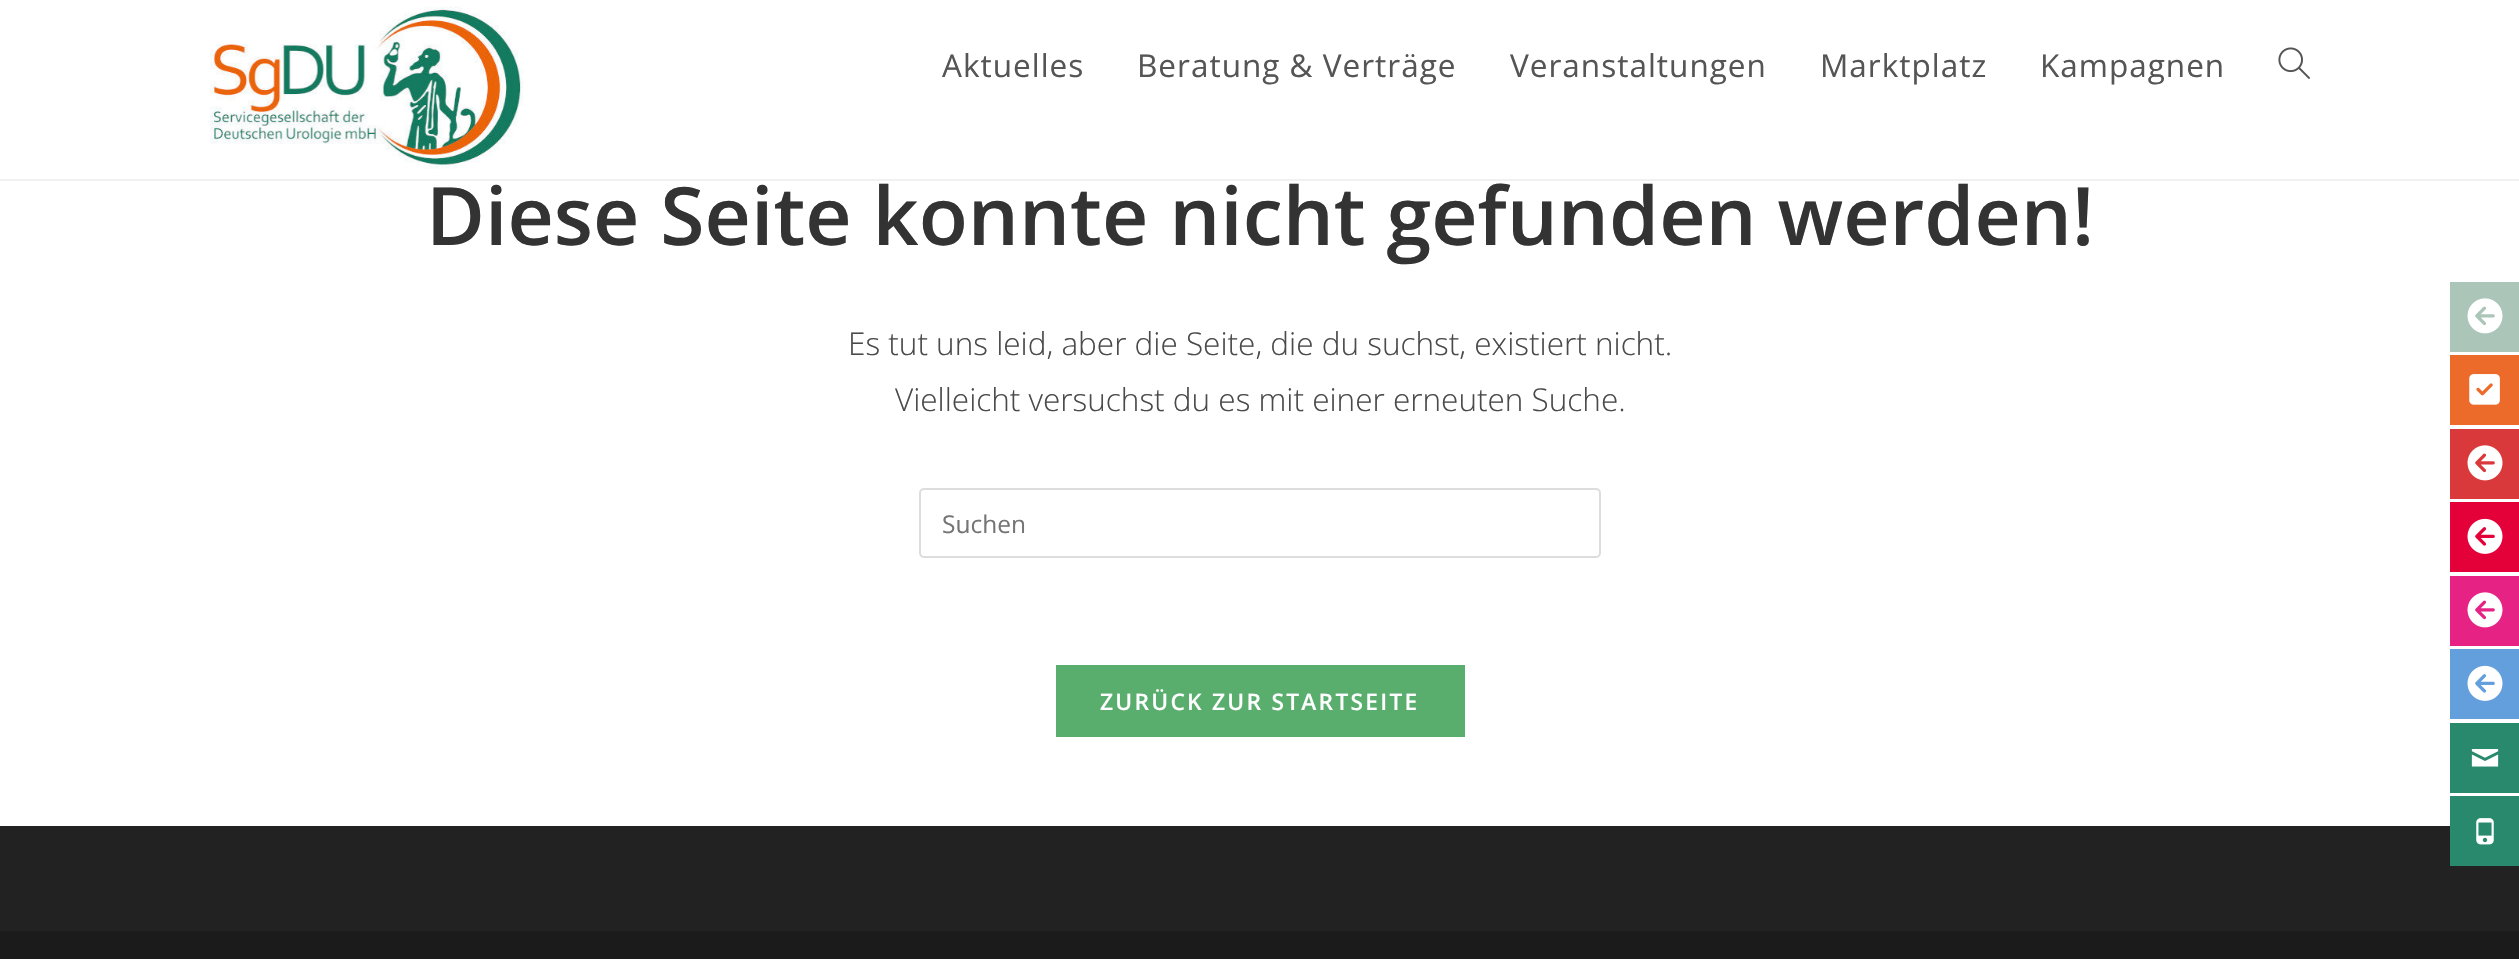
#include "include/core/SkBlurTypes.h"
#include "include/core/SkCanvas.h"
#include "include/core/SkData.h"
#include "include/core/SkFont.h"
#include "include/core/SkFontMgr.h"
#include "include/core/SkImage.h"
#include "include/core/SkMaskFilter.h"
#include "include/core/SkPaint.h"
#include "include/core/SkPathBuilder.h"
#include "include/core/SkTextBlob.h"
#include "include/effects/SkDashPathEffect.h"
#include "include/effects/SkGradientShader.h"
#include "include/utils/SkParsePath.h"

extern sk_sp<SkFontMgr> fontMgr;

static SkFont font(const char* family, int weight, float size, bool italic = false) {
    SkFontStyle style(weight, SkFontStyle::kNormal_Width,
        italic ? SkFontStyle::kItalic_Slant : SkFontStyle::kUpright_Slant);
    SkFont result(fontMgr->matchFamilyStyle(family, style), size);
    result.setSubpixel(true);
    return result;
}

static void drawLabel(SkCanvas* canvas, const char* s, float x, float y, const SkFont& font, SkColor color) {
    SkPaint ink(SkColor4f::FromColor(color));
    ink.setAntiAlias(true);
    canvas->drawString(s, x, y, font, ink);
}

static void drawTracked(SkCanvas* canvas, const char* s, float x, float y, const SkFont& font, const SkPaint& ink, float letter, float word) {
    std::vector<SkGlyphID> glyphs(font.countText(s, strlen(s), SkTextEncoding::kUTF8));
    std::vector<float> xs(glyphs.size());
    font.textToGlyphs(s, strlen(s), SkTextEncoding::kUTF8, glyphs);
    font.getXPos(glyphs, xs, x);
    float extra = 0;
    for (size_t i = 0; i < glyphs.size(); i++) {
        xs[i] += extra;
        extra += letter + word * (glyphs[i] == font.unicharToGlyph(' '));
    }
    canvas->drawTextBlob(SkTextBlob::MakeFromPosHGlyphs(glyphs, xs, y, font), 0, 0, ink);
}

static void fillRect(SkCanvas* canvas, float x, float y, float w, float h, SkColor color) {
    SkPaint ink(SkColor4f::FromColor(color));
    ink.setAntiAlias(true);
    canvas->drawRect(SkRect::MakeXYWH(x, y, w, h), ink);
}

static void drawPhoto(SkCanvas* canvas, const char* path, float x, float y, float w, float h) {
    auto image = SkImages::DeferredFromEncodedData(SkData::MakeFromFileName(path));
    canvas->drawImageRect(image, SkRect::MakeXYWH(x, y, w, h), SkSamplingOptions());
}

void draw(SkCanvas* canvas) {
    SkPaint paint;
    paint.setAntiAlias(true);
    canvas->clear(0xFFFFFFFF);
    fillRect(canvas, 0, 179, 2519, 2, 0xFFF1F1F1);
    drawPhoto(canvas, "assets/img1.png", 210, 6, 314, 163);
    SkFont font1 = font("Open Sans", 400, 31.5f);
    paint.setColor(0xFF555555);
    drawTracked(canvas, "Aktuelles", 942, 77, font1, paint, 1, 0);
    drawTracked(canvas, "Beratung & Verträge", 1137, 77, font1, paint, 1, 0);
    drawTracked(canvas, "Veranstaltungen", 1510, 77, font1, paint, 1, 0);
    drawTracked(canvas, "Marktplatz", 1820, 77, font1, paint, 1, 0);
    drawTracked(canvas, "Kampagnen", 2040, 77, font1, paint, 1, 0);
    drawPhoto(canvas, "assets/img2.png", 2278, 47, 32, 32);
    SkFont font2 = font("Open Sans", 600, 80.5f);
    drawLabel(canvas, "Diese Seite konnte nicht gefunden werden!", 426, 245, font2, 0xFF333333);
    SkFont font3 = font("Open Sans", 300, 31.5f);
    drawLabel(canvas, "Es tut uns leid, aber die Seite, die du suchst, existiert nicht.", 848, 355, font3, 0xFF4A4A4A);
    drawLabel(canvas, "Vielleicht versuchst du es mit einer erneuten Suche.", 895, 411, font3, 0xFF4A4A4A);
    paint.setStroke(true);
    paint.setStrokeWidth(2);
    paint.setColor(0xFFDDDDDD);
    canvas->drawRoundRect(SkRect::MakeXYWH(920, 489, 680, 68), 4, 4, paint);
    SkFont font4 = font("Open Sans", 400, 24.5f);
    drawLabel(canvas, "Suchen", 942, 533, font4, 0xFF757575);
    fillRect(canvas, 1056, 665, 409, 72, 0xFF59AE6E);
    SkFont font5 = font("Open Sans", 600, 22.75f);
    paint.setStroke(false);
    paint.setColor(0xFFFFFFFF);
    drawTracked(canvas, "ZURÜCK ZUR STARTSEITE", 1100, 710, font5, paint, 2.25f, 0);
    fillRect(canvas, 0, 826, 2519, 105, 0xFF222222);
    fillRect(canvas, 0, 931, 2519, 28, 0xFF1B1B1B);
    fillRect(canvas, 2450, 282, 69, 70, 0xFFABC5B8);
    drawPhoto(canvas, "assets/img3.png", 2467, 298, 36, 36);
    fillRect(canvas, 2450, 355, 69, 70, 0xFFEC6B2B);
    drawPhoto(canvas, "assets/img4.png", 2469, 374, 31, 31);
    fillRect(canvas, 2450, 429, 69, 70, 0xFFDA393B);
    drawPhoto(canvas, "assets/img5.png", 2467, 445, 36, 36);
    fillRect(canvas, 2450, 502, 69, 70, 0xFFE40038);
    drawPhoto(canvas, "assets/img6.png", 2467, 518, 36, 36);
    fillRect(canvas, 2450, 576, 69, 70, 0xFFE62284);
    drawPhoto(canvas, "assets/img7.png", 2467, 592, 36, 36);
    fillRect(canvas, 2450, 649, 69, 70, 0xFF639FDD);
    drawPhoto(canvas, "assets/img8.png", 2467, 665, 36, 36);
    fillRect(canvas, 2450, 723, 69, 70, 0xFF28896C);
    drawPhoto(canvas, "assets/img9.png", 2471, 749, 28, 18);
    fillRect(canvas, 2450, 796, 69, 70, 0xFF28896C);
    drawPhoto(canvas, "assets/img10.png", 2476, 818, 18, 27);
}
